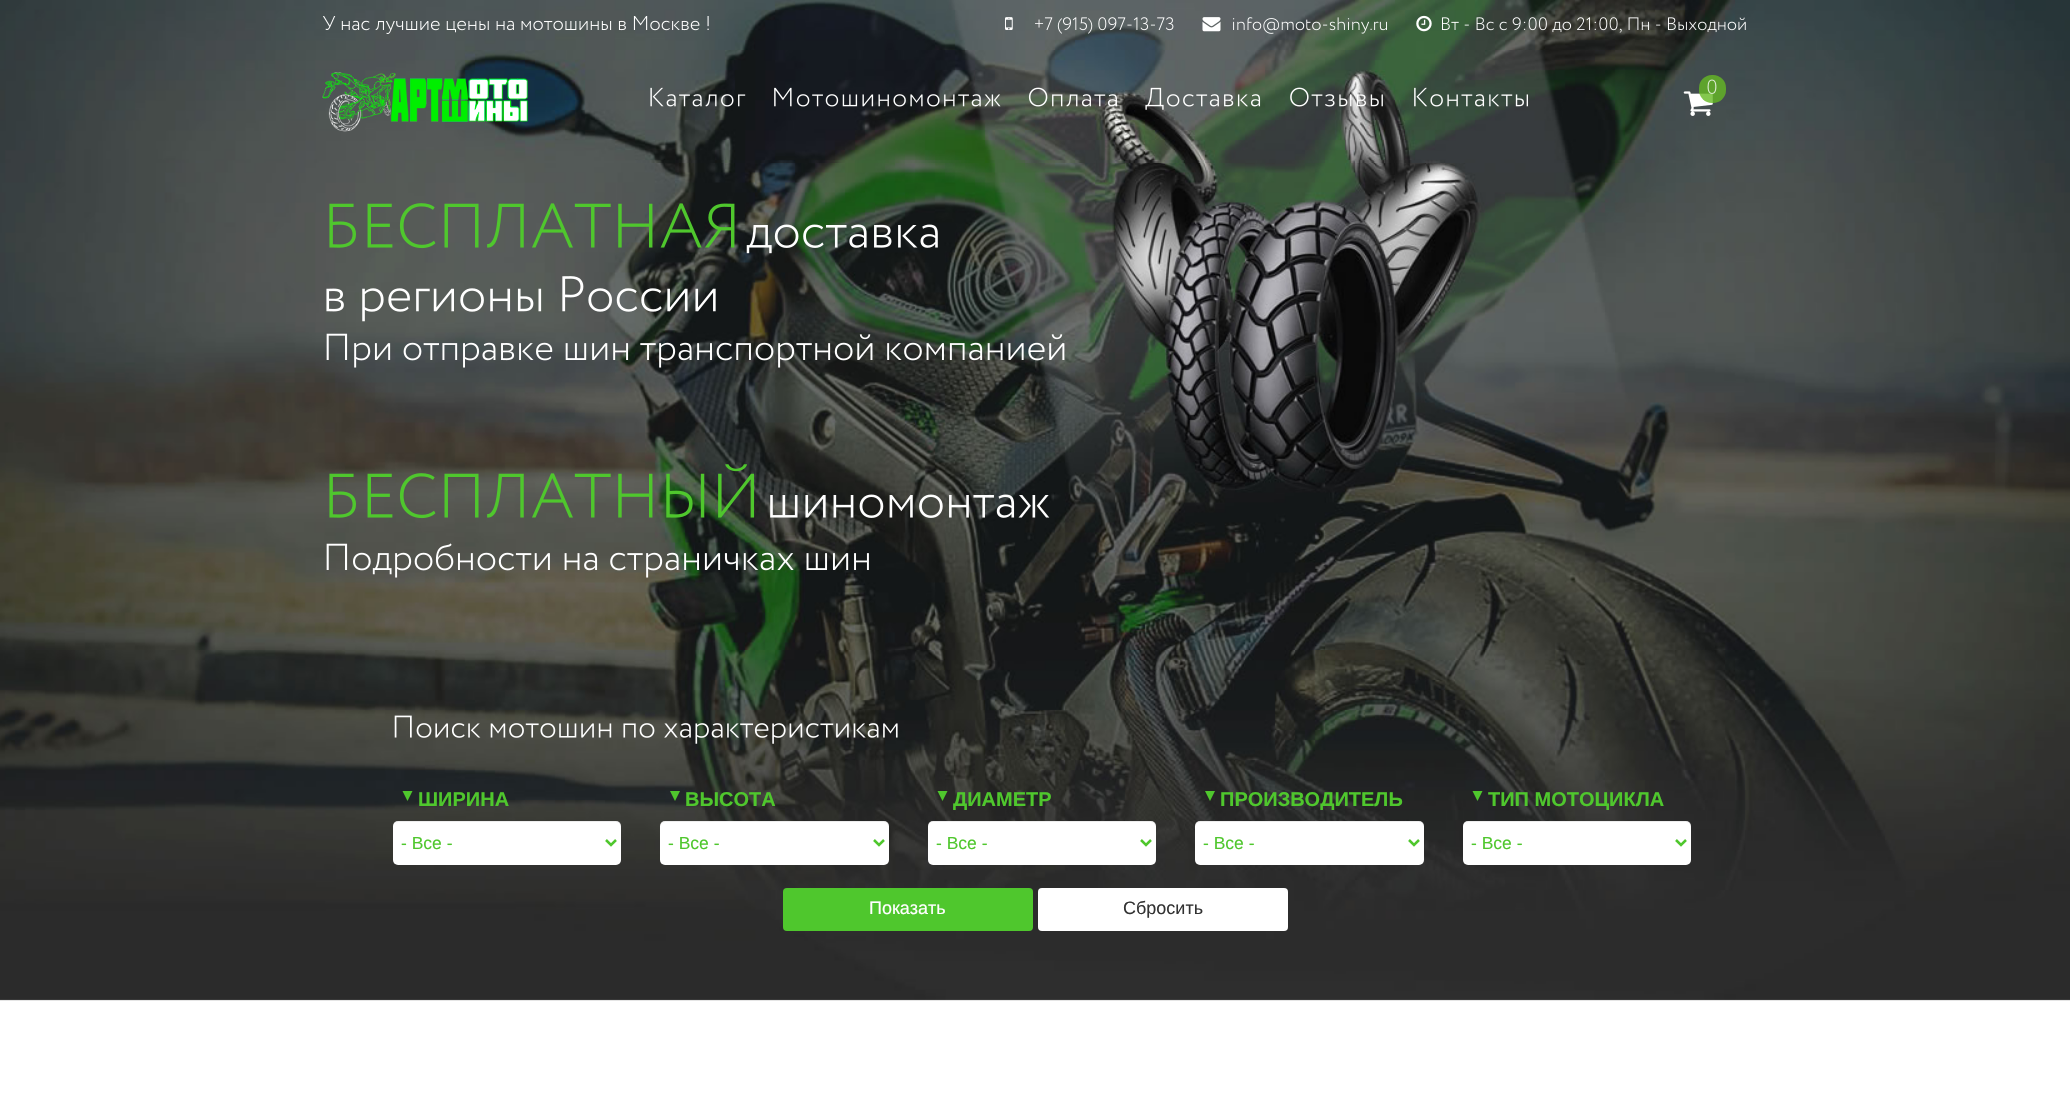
#include "include/core/SkBlurTypes.h"
#include "include/core/SkCanvas.h"
#include "include/core/SkData.h"
#include "include/core/SkFont.h"
#include "include/core/SkFontMgr.h"
#include "include/core/SkImage.h"
#include "include/core/SkMaskFilter.h"
#include "include/core/SkPaint.h"
#include "include/core/SkPathBuilder.h"
#include "include/core/SkTextBlob.h"
#include "include/effects/SkDashPathEffect.h"
#include "include/effects/SkGradientShader.h"
#include "include/utils/SkParsePath.h"

extern sk_sp<SkFontMgr> fontMgr;

static SkFont font(const char* family, int weight, float size, bool italic = false) {
    SkFontStyle style(weight, SkFontStyle::kNormal_Width,
        italic ? SkFontStyle::kItalic_Slant : SkFontStyle::kUpright_Slant);
    SkFont result(fontMgr->matchFamilyStyle(family, style), size);
    result.setSubpixel(true);
    return result;
}

static void drawLabel(SkCanvas* canvas, const char* s, float x, float y, const SkFont& font, SkColor color) {
    SkPaint ink(SkColor4f::FromColor(color));
    ink.setAntiAlias(true);
    canvas->drawString(s, x, y, font, ink);
}

static void fillRRect(SkCanvas* canvas, float x, float y, float w, float h, float radius, SkColor color) {
    SkPaint ink(SkColor4f::FromColor(color));
    ink.setAntiAlias(true);
    canvas->drawRoundRect(SkRect::MakeXYWH(x, y, w, h), radius, radius, ink);
}

static void drawPhoto(SkCanvas* canvas, const char* path, float x, float y, float w, float h) {
    auto image = SkImages::DeferredFromEncodedData(SkData::MakeFromFileName(path));
    canvas->drawImageRect(image, SkRect::MakeXYWH(x, y, w, h), SkSamplingOptions());
}

static SkPath parsePath(const char* data, bool evenOdd = false) {
    SkPath result = *SkParsePath::FromSVGString(data);
    if (evenOdd) result.setFillType(SkPathFillType::kEvenOdd);
    return result;
}

void draw(SkCanvas* canvas) {
    SkPaint paint;
    paint.setAntiAlias(true);
    canvas->clear(0xFFFFFFFF);
    drawPhoto(canvas, "assets/img1.png", 0, 0, 2070, 50);
    drawPhoto(canvas, "assets/img2.png", 323, 16, 386, 18);
    drawPhoto(canvas, "assets/img3.png", 1005, 17, 8, 13);
    drawPhoto(canvas, "assets/img4.png", 1035, 17, 139, 17);
    drawPhoto(canvas, "assets/img5.png", 1202, 17, 19, 15);
    drawPhoto(canvas, "assets/img6.png", 1233, 17, 154, 17);
    drawPhoto(canvas, "assets/img7.png", 1416, 15, 16, 17);
    drawPhoto(canvas, "assets/img8.png", 1442, 17, 304, 16);
    drawPhoto(canvas, "assets/img9.png", 0, 50, 2070, 113);
    drawPhoto(canvas, "assets/img10.png", 322, 72, 206, 60);
    drawPhoto(canvas, "assets/img11.png", 650, 87, 96, 20);
    drawPhoto(canvas, "assets/img12.png", 774, 87, 227, 20);
    drawPhoto(canvas, "assets/img13.png", 1028, 87, 89, 20);
    drawPhoto(canvas, "assets/img14.png", 1145, 87, 116, 23);
    drawPhoto(canvas, "assets/img15.png", 1290, 87, 93, 20);
    drawPhoto(canvas, "assets/img16.png", 1414, 87, 114, 20);
    drawPhoto(canvas, "assets/img18.png", 1683, 91, 30, 25);
    fillRRect(canvas, 1699, 75, 27, 28, 13, 0xCC65B923);
    drawPhoto(canvas, "assets/img17.png", 1707, 79, 10, 15);
    drawPhoto(canvas, "assets/img19.png", 0, 163, 2070, 487);
    drawPhoto(canvas, "assets/img20.png", 329, 203, 406, 46);
    drawPhoto(canvas, "assets/img21.png", 746, 224, 192, 30);
    drawPhoto(canvas, "assets/img22.png", 326, 276, 390, 46);
    drawPhoto(canvas, "assets/img23.png", 326, 333, 739, 35);
    drawPhoto(canvas, "assets/img24.png", 329, 464, 426, 55);
    drawPhoto(canvas, "assets/img25.png", 770, 494, 280, 24);
    drawPhoto(canvas, "assets/img26.png", 326, 543, 543, 35);
    drawPhoto(canvas, "assets/img27.png", 0, 650, 2070, 351);
    drawPhoto(canvas, "assets/img28.png", 394, 715, 504, 29);
    paint.setColor(0xFF4FC72D);
    canvas->drawPath(parsePath("M402.5 791H412.5L407.5 801Z"), paint);
    SkFont font1 = font("Liberation Sans", 700, 20);
    drawLabel(canvas, "ШИРИНА", 418, 806, font1, 0xFF4FC72D);
    fillRRect(canvas, 393, 821, 228, 44, 5, 0xFFFFFFFF);
    paint.setColor(0x12000000);
    canvas->drawPath(parsePath("M398 822H616C619 822 621 825 621 828V826C621 823 619 821 616 821H398C396 821 394 823 393 825C394 823 396 822 398 822Z"), paint);
    paint.setStroke(true);
    paint.setStrokeWidth(2.5f);
    paint.setColor(0xFF4FC72D);
    canvas->drawPath(parsePath("M606 840L611 845L616 840"), paint);
    SkFont font2 = font("Liberation Sans", 400, 17.5f);
    drawLabel(canvas, "- Все -", 401, 849, font2, 0xFF4FC72D);
    paint.setStroke(false);
    canvas->drawPath(parsePath("M670 791H680L675 801Z"), paint);
    drawLabel(canvas, "ВЫСОТА", 685, 806, font1, 0xFF4FC72D);
    fillRRect(canvas, 660, 821, 229, 44, 5, 0xFFFFFFFF);
    paint.setColor(0x12000000);
    canvas->drawPath(parsePath("M665 822H884C887 822 889 825 889 828C889 825 889 822 885 821H665C661 821 660 825 660 828C660 825 662 822 665 822Z"), paint);
    paint.setStroke(true);
    paint.setColor(0xFF4FC72D);
    canvas->drawPath(parsePath("M874 840L879 845L884 840"), paint);
    drawLabel(canvas, "- Все -", 668, 849, font2, 0xFF4FC72D);
    paint.setStroke(false);
    canvas->drawPath(parsePath("M937.5 791H947.5L942.5 801Z"), paint);
    drawLabel(canvas, "ДИАМЕТР", 953, 806, font1, 0xFF4FC72D);
    fillRRect(canvas, 928, 821, 228, 44, 5, 0xFFFFFFFF);
    paint.setColor(0x12000000);
    canvas->drawPath(parsePath("M932 822H1151C1154 822 1156 825 1156 828C1156 825 1156 822 1152 821H933C929 821 928 825 928 828C928 825 930 822 932 822Z"), paint);
    paint.setStroke(true);
    paint.setColor(0xFF4FC72D);
    canvas->drawPath(parsePath("M1141 840L1146 845L1151 840"), paint);
    drawLabel(canvas, "- Все -", 936, 849, font2, 0xFF4FC72D);
    paint.setStroke(false);
    canvas->drawPath(parsePath("M1205 791H1215L1210 801Z"), paint);
    drawLabel(canvas, "ПРОИЗВОДИТЕЛЬ", 1220, 806, font1, 0xFF4FC72D);
    fillRRect(canvas, 1195, 821, 229, 44, 5, 0xFFFFFFFF);
    paint.setColor(0x12000000);
    canvas->drawPath(parsePath("M1200 822H1419C1422 822 1424 825 1424 828C1424 825 1424 822 1420 821H1200C1196 821 1195 825 1195 828C1195 825 1197 822 1200 822Z"), paint);
    paint.setStroke(true);
    paint.setColor(0xFF4FC72D);
    canvas->drawPath(parsePath("M1409 840L1414 845L1419 840"), paint);
    drawLabel(canvas, "- Все -", 1203, 849, font2, 0xFF4FC72D);
    paint.setStroke(false);
    canvas->drawPath(parsePath("M1472.5 791H1482.5L1477.5 801Z"), paint);
    drawLabel(canvas, "ТИП МОТОЦИКЛА", 1488, 806, font1, 0xFF4FC72D);
    fillRRect(canvas, 1463, 821, 228, 44, 5, 0xFFFFFFFF);
    paint.setColor(0x12000000);
    canvas->drawPath(parsePath("M1468 822H1686C1689 822 1691 825 1691 828V826C1691 823 1689 821 1686 821H1468C1466 821 1464 823 1463 825C1464 823 1466 822 1468 822Z"), paint);
    paint.setStroke(true);
    paint.setColor(0xFF4FC72D);
    canvas->drawPath(parsePath("M1676 840L1681 845L1686 840"), paint);
    drawLabel(canvas, "- Все -", 1471, 849, font2, 0xFF4FC72D);
    fillRRect(canvas, 783, 888, 250, 43, 4, 0xFF4FC72D);
    SkFont font3 = font("Liberation Sans", 400, 18);
    drawLabel(canvas, "Показать", 869, 914, font3, 0xFFFFFFFF);
    fillRRect(canvas, 1038, 888, 250, 43, 4, 0xFFFFFFFF);
    drawLabel(canvas, "Сбросить", 1123, 914, font3, 0xFF333333);
}
